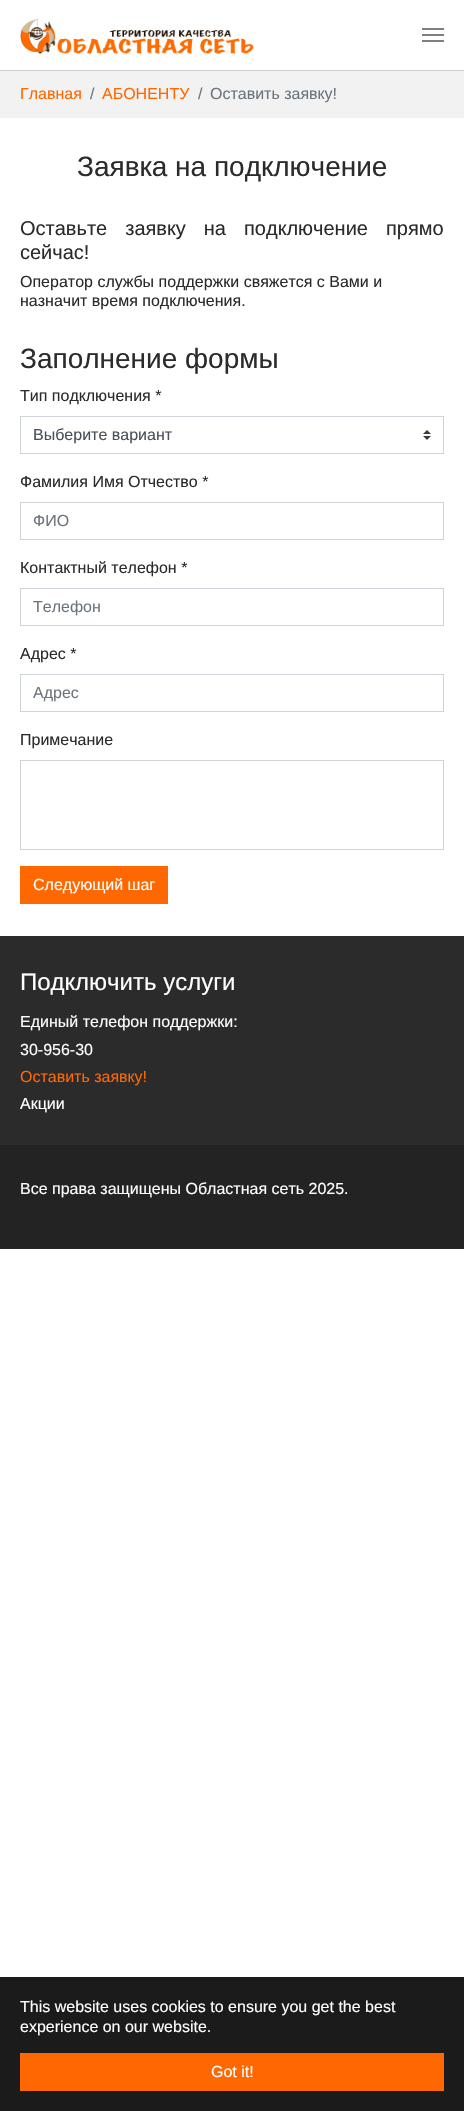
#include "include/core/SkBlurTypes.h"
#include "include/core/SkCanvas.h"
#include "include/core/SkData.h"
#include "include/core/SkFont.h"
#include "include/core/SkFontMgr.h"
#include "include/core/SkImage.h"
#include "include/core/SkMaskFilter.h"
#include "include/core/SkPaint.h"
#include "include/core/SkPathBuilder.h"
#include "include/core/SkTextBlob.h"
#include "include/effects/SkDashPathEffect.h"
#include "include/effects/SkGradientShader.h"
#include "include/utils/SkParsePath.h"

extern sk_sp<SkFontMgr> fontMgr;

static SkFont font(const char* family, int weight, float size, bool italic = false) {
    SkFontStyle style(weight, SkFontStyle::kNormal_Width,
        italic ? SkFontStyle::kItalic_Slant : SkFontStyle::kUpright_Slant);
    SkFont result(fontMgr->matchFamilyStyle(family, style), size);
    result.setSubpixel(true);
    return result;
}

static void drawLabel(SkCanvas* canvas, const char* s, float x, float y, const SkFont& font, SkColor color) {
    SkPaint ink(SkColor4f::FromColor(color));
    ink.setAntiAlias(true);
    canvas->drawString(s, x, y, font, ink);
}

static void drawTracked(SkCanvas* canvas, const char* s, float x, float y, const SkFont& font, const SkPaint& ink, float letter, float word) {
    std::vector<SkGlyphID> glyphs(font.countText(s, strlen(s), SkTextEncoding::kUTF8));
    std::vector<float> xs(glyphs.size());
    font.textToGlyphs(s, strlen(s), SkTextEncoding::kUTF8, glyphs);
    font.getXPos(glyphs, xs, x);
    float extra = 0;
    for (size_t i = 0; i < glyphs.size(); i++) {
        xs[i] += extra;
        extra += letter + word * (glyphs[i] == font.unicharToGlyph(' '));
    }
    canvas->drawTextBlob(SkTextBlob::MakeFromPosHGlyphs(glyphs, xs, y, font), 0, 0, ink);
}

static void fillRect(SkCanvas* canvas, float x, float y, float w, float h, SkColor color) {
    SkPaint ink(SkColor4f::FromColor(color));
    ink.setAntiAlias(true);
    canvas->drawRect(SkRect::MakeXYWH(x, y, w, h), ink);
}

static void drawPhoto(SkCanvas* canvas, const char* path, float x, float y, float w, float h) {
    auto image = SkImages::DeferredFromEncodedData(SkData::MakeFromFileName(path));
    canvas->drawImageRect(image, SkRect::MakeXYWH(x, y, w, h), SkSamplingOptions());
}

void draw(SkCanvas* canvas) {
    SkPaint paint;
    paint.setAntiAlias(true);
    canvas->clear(0xFFFFFFFF);
    fillRect(canvas, 0, 70, 464, 1, 0xFFCECECE);
    drawPhoto(canvas, "assets/img1.png", 20, 19, 234, 36);
    fillRect(canvas, 422, 34, 22, 2, 0xFF808080);
    fillRect(canvas, 422, 28, 22, 2, 0xFF808080);
    fillRect(canvas, 422, 40, 22, 2, 0xFF808080);
    fillRect(canvas, 0, 71, 464, 47, 0xFFF2F2F2);
    SkFont font1 = font("Liberation Sans", 400, 16);
    drawLabel(canvas, "Главная", 20, 99, font1, 0xFFFF6800);
    drawLabel(canvas, "/", 90, 99, font1, 0xFF6C757D);
    drawLabel(canvas, "АБОНЕНТУ", 102, 99, font1, 0xFFFF6800);
    drawLabel(canvas, "/", 198, 99, font1, 0xFF6C757D);
    drawLabel(canvas, "Оставить заявку!", 210, 99, font1, 0xFF6C757D);
    SkFont font2 = font("Liberation Sans", 400, 28);
    drawLabel(canvas, "Заявка на подключение", 77, 176, font2, 0xFF2B2B2B);
    SkFont font3 = font("Liberation Sans", 400, 20);
    paint.setColor(0xFF2B2B2B);
    drawTracked(canvas, "Оставьте заявку на подключение прямо", 20, 235, font3, paint, 0, 12.5f);
    drawLabel(canvas, "сейчас!", 20, 259, font3, 0xFF2B2B2B);
    drawLabel(canvas, "Оператор службы поддержки свяжется с Вами и", 20, 287, font1, 0xFF2B2B2B);
    drawLabel(canvas, "назначит время подключения.", 20, 306, font1, 0xFF2B2B2B);
    drawLabel(canvas, "Заполнение формы", 20, 368, font2, 0xFF2B2B2B);
    drawLabel(canvas, "Тип подключения *", 20, 401, font1, 0xFF2B2B2B);
    drawPhoto(canvas, "assets/img2.png", 423, 430, 8, 10);
    paint.setStroke(true);
    paint.setStrokeWidth(1);
    paint.setColor(0xFFCED4DA);
    canvas->drawRect(SkRect::MakeXYWH(20.5f, 416.5f, 423, 37), paint);
    drawLabel(canvas, "Выберите вариант", 33, 440, font1, 0xFF495057);
    drawLabel(canvas, "Фамилия Имя Отчество *", 20, 487, font1, 0xFF2B2B2B);
    canvas->drawRect(SkRect::MakeXYWH(20.5f, 502.5f, 423, 37), paint);
    drawLabel(canvas, "ФИО", 33, 526, font1, 0xFF6C757D);
    drawLabel(canvas, "Контактный телефон *", 20, 573, font1, 0xFF2B2B2B);
    canvas->drawRect(SkRect::MakeXYWH(20.5f, 588.5f, 423, 37), paint);
    drawLabel(canvas, "Телефон", 33, 612, font1, 0xFF6C757D);
    drawLabel(canvas, "Адрес *", 20, 659, font1, 0xFF2B2B2B);
    canvas->drawRect(SkRect::MakeXYWH(20.5f, 674.5f, 423, 37), paint);
    drawLabel(canvas, "Адрес", 33, 698, font1, 0xFF6C757D);
    drawLabel(canvas, "Примечание", 20, 745, font1, 0xFF2B2B2B);
    canvas->drawRect(SkRect::MakeXYWH(20.5f, 760.5f, 423, 89), paint);
    fillRect(canvas, 20, 866, 148, 38, 0xFFFF6800);
    drawLabel(canvas, "Следующий шаг", 33, 890, font1, 0xFFFFFFFF);
    fillRect(canvas, 0, 936, 464, 209, 0xFF2B2B2B);
    SkFont font4 = font("Liberation Sans", 400, 24);
    drawLabel(canvas, "Подключить услуги", 20, 990, font4, 0xFFFFFFFF);
    drawLabel(canvas, "Единый телефон поддержки:", 20, 1027, font1, 0xFFFFFFFF);
    drawLabel(canvas, "30-956-30", 20, 1055, font1, 0xFFFFFFFF);
    drawLabel(canvas, "Оставить заявку!", 20, 1082, font1, 0xFFFF6800);
    drawLabel(canvas, "Акции", 20, 1109, font1, 0xFFFFFFFF);
    fillRect(canvas, 0, 1145, 464, 104, 0xFF232323);
    drawLabel(canvas, "Все права защищены Областная сеть 2025.", 20, 1194, font1, 0xFFFFFFFF);
    fillRect(canvas, 0, 1977, 464, 134, 0xFF1B1B1B);
    drawLabel(canvas, "This website uses cookies to ensure you get the best", 20, 2012, font1, 0xFFFFFFFF);
    drawLabel(canvas, "experience on our website.", 20, 2032, font1, 0xFFFFFFFF);
    fillRect(canvas, 20, 2053, 424, 38, 0xFFFF6800);
    drawLabel(canvas, "Got it!", 211, 2077, font1, 0xFFFFFFFF);
}
